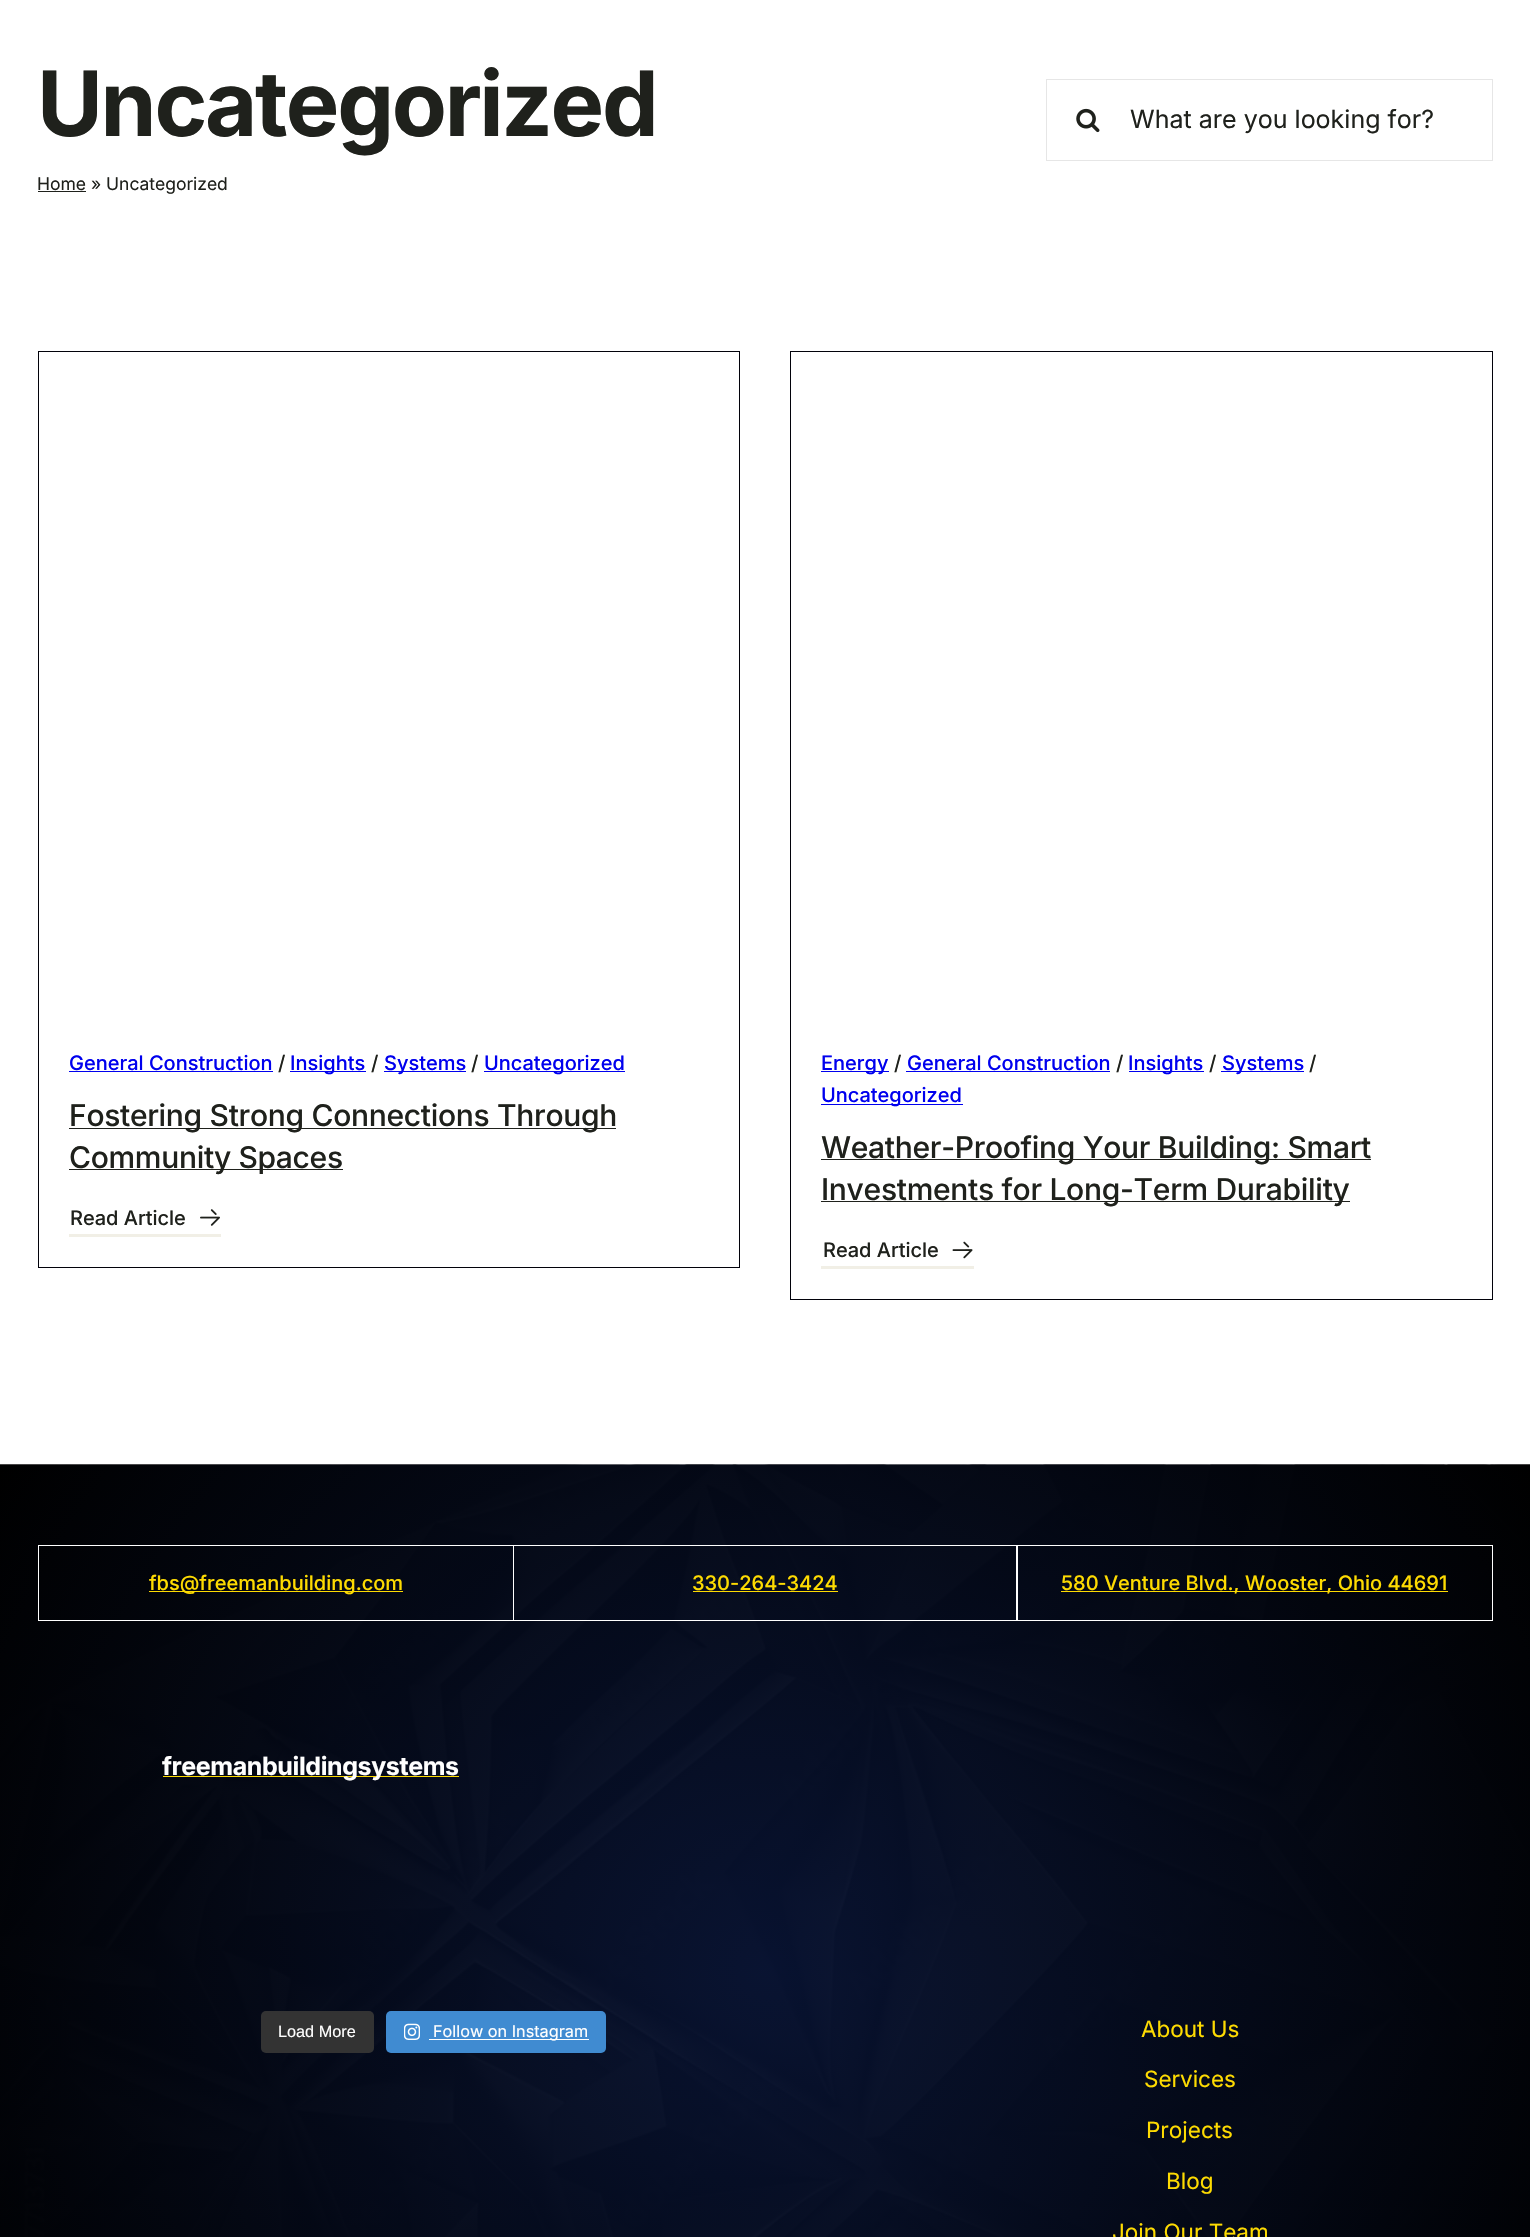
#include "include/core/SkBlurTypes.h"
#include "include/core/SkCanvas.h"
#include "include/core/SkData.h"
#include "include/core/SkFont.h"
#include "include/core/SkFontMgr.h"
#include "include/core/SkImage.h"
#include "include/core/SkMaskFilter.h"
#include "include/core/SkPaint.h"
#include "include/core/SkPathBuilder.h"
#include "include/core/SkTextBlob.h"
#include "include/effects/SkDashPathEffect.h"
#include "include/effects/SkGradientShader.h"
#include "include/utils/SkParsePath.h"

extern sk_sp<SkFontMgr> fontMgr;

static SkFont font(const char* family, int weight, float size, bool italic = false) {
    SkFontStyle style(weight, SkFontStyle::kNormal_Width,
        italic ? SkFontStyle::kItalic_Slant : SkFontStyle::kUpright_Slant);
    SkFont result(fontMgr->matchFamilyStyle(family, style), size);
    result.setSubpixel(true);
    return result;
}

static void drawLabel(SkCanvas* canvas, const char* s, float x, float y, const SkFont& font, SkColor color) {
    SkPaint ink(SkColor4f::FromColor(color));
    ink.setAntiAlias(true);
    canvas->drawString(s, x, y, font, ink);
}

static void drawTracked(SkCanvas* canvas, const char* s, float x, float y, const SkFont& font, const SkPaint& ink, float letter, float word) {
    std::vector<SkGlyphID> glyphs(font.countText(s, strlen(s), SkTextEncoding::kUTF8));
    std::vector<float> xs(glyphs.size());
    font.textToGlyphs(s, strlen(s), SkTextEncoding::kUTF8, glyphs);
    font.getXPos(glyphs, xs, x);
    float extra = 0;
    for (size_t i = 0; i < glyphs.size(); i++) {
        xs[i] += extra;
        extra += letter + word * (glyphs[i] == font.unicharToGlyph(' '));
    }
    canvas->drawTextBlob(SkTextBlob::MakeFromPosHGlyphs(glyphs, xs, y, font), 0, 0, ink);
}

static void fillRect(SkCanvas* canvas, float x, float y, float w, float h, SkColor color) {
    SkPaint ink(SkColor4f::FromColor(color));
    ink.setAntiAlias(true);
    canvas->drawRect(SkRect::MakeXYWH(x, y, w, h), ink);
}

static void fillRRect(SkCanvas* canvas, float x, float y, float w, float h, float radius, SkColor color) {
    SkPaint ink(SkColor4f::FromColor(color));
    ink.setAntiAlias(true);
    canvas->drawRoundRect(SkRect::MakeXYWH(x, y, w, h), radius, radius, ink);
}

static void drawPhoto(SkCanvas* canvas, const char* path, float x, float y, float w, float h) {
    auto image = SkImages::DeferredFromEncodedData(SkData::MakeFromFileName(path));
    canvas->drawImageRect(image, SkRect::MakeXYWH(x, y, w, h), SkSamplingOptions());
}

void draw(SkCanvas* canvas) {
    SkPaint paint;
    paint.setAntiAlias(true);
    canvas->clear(0xFFFFFFFF);
    SkFont font1 = font("Inter", 700, 90);
    paint.setColor(0xFF1F211C);
    drawTracked(canvas, "Uncategorized", 37, 136, font1, paint, -2.25f, 0);
    fillRect(canvas, 38, 191, 48, 1, 0xFF1F211C);
    SkFont font2 = font("Inter", 400, 17.5f);
    drawLabel(canvas, "Home » Uncategorized", 37, 190, font2, 0xFF1F211C);
    paint.setStroke(true);
    paint.setStrokeWidth(1);
    paint.setColor(0xFFE6E6E6);
    canvas->drawRect(SkRect::MakeXYWH(1046.5f, 79.5f, 446, 81), paint);
    drawPhoto(canvas, "assets/img1.png", 1076, 108, 24, 25);
    SkFont font3 = font("Inter", 400, 25);
    drawLabel(canvas, "What are you looking for?", 1130, 128, font3, 0xFF1F211C);
    paint.setColor(0xFF01010A);
    canvas->drawRect(SkRect::MakeXYWH(38.5f, 351.5f, 701, 916), paint);
    SkFont font4 = font("Inter", 500, 20);
    drawLabel(canvas, "General Construction", 69, 1070, font4, 0xFF0000EE);
    fillRect(canvas, 69, 1071, 204, 1, 0xFF0000EE);
    drawLabel(canvas, "/", 278, 1070, font4, 0xFF1F211C);
    fillRect(canvas, 290, 1071, 76, 1, 0xFF0000EE);
    drawLabel(canvas, "Insights", 290, 1070, font4, 0xFF0000EE);
    drawLabel(canvas, "/", 371, 1070, font4, 0xFF1F211C);
    fillRect(canvas, 384, 1071, 82, 1, 0xFF0000EE);
    drawLabel(canvas, "Systems", 384, 1070, font4, 0xFF0000EE);
    drawLabel(canvas, "/", 471, 1070, font4, 0xFF1F211C);
    fillRect(canvas, 484, 1071, 141, 1, 0xFF0000EE);
    drawLabel(canvas, "Uncategorized", 484, 1070, font4, 0xFF0000EE);
    fillRect(canvas, 69, 1128, 547, 1, 0xFF1F211C);
    SkFont font5 = font("Inter", 500, 30);
    paint.setStroke(false);
    paint.setColor(0xFF1F211C);
    drawTracked(canvas, "Fostering Strong Connections Through", 69, 1126, font5, paint, -0.3f, 0);
    fillRect(canvas, 69, 1169, 274, 1, 0xFF1F211C);
    drawTracked(canvas, "Community Spaces", 69, 1168, font5, paint, -0.3f, 0);
    fillRect(canvas, 69, 1234, 152, 3, 0xFFF1EFE6);
    drawLabel(canvas, "Read Article", 70, 1225, font4, 0xFF1F211C);
    drawPhoto(canvas, "assets/img2.png", 200, 1209, 20, 17);
    paint.setStroke(true);
    paint.setColor(0xFF01010A);
    canvas->drawRect(SkRect::MakeXYWH(790.5f, 351.5f, 702, 948), paint);
    fillRect(canvas, 821, 1071, 68, 1, 0xFF0000EE);
    drawLabel(canvas, "Energy", 821, 1070, font4, 0xFF0000EE);
    drawLabel(canvas, "/", 894, 1070, font4, 0xFF1F211C);
    drawLabel(canvas, "General Construction", 907, 1070, font4, 0xFF0000EE);
    fillRect(canvas, 906, 1071, 204, 1, 0xFF0000EE);
    drawLabel(canvas, "/", 1116, 1070, font4, 0xFF1F211C);
    fillRect(canvas, 1129, 1071, 75, 1, 0xFF0000EE);
    drawLabel(canvas, "Insights", 1128, 1070, font4, 0xFF0000EE);
    drawLabel(canvas, "/", 1209, 1070, font4, 0xFF1F211C);
    fillRect(canvas, 1221, 1071, 83, 1, 0xFF0000EE);
    drawLabel(canvas, "Systems", 1222, 1070, font4, 0xFF0000EE);
    drawLabel(canvas, "/", 1309, 1070, font4, 0xFF1F211C);
    fillRect(canvas, 821, 1104, 142, 1, 0xFF0000EE);
    drawLabel(canvas, "Uncategorized", 821, 1102, font4, 0xFF0000EE);
    fillRect(canvas, 821, 1159, 550, 1, 0xFF1F211C);
    paint.setStroke(false);
    paint.setColor(0xFF1F211C);
    drawTracked(canvas, "Weather-Proofing Your Building: Smart", 821, 1158, font5, paint, -0.3f, 0);
    fillRect(canvas, 821, 1201, 529, 1, 0xFF1F211C);
    drawTracked(canvas, "Investments for Long-Term Durability", 821, 1200, font5, paint, -0.3f, 0);
    fillRect(canvas, 821, 1266, 153, 3, 0xFFF1EFE6);
    drawLabel(canvas, "Read Article", 823, 1257, font4, 0xFF1F211C);
    drawPhoto(canvas, "assets/img3.png", 952, 1241, 21, 18);
    drawPhoto(canvas, "assets/img4.png", 0, 1464, 1530, 773);
    paint.setStroke(true);
    paint.setColor(0xFFFFFFFF);
    canvas->drawRect(SkRect::MakeXYWH(38.5f, 1545.5f, 475, 75), paint);
    fillRect(canvas, 149, 1591, 254, 1, 0xFFFEDB01);
    drawLabel(canvas, "fbs@freemanbuilding.com", 149, 1590, font4, 0xFFFEDB01);
    canvas->drawRect(SkRect::MakeXYWH(513.5f, 1545.5f, 504, 75), paint);
    drawLabel(canvas, "330-264-3424", 692, 1590, font4, 0xFFFEDB01);
    fillRect(canvas, 693, 1591, 145, 1, 0xFFFEDB01);
    canvas->drawRect(SkRect::MakeXYWH(1016.5f, 1545.5f, 476, 75), paint);
    fillRect(canvas, 1061, 1591, 387, 1, 0xFFFEDB01);
    drawLabel(canvas, "580 Venture Blvd., Wooster, Ohio 44691", 1061, 1590, font4, 0xFFFEDB01);
    fillRect(canvas, 163, 1776, 296, 1, 0xFFFEDB01);
    SkFont font6 = font("Inter", 700, 25);
    paint.setStroke(false);
    drawTracked(canvas, "freemanbuildingsystems", 162, 1775, font6, paint, -0.4f, 0);
    fillRRect(canvas, 261, 2011, 113, 42, 5, 0xFF333333);
    SkFont font7 = font("Liberation Sans", 400, 16.25f);
    drawLabel(canvas, "Load More", 278, 2037, font7, 0xFFFFFFFF);
    fillRRect(canvas, 386, 2011, 220, 42, 5, 0xFF408BD1);
    drawPhoto(canvas, "assets/img5.png", 404, 2023, 16, 17);
    fillRect(canvas, 429, 2039, 160, 1, 0xFFFFFFFF);
    SkFont font8 = font("Inter", 400, 16.25f);
    drawLabel(canvas, "Follow on Instagram", 433, 2037, font8, 0xFFFFFFFF);
    SkFont font9 = font("Inter", 400, 22.5f);
    drawLabel(canvas, "About Us", 1141, 2037, font9, 0xFFFEDB01);
    drawLabel(canvas, "Services", 1144, 2087, font9, 0xFFFEDB01);
    drawLabel(canvas, "Projects", 1146, 2138, font9, 0xFFFEDB01);
    drawLabel(canvas, "Blog", 1166, 2189, font9, 0xFFFEDB01);
    drawLabel(canvas, "Join Our Team", 1112, 2240, font9, 0xFFFEDB01);
}
